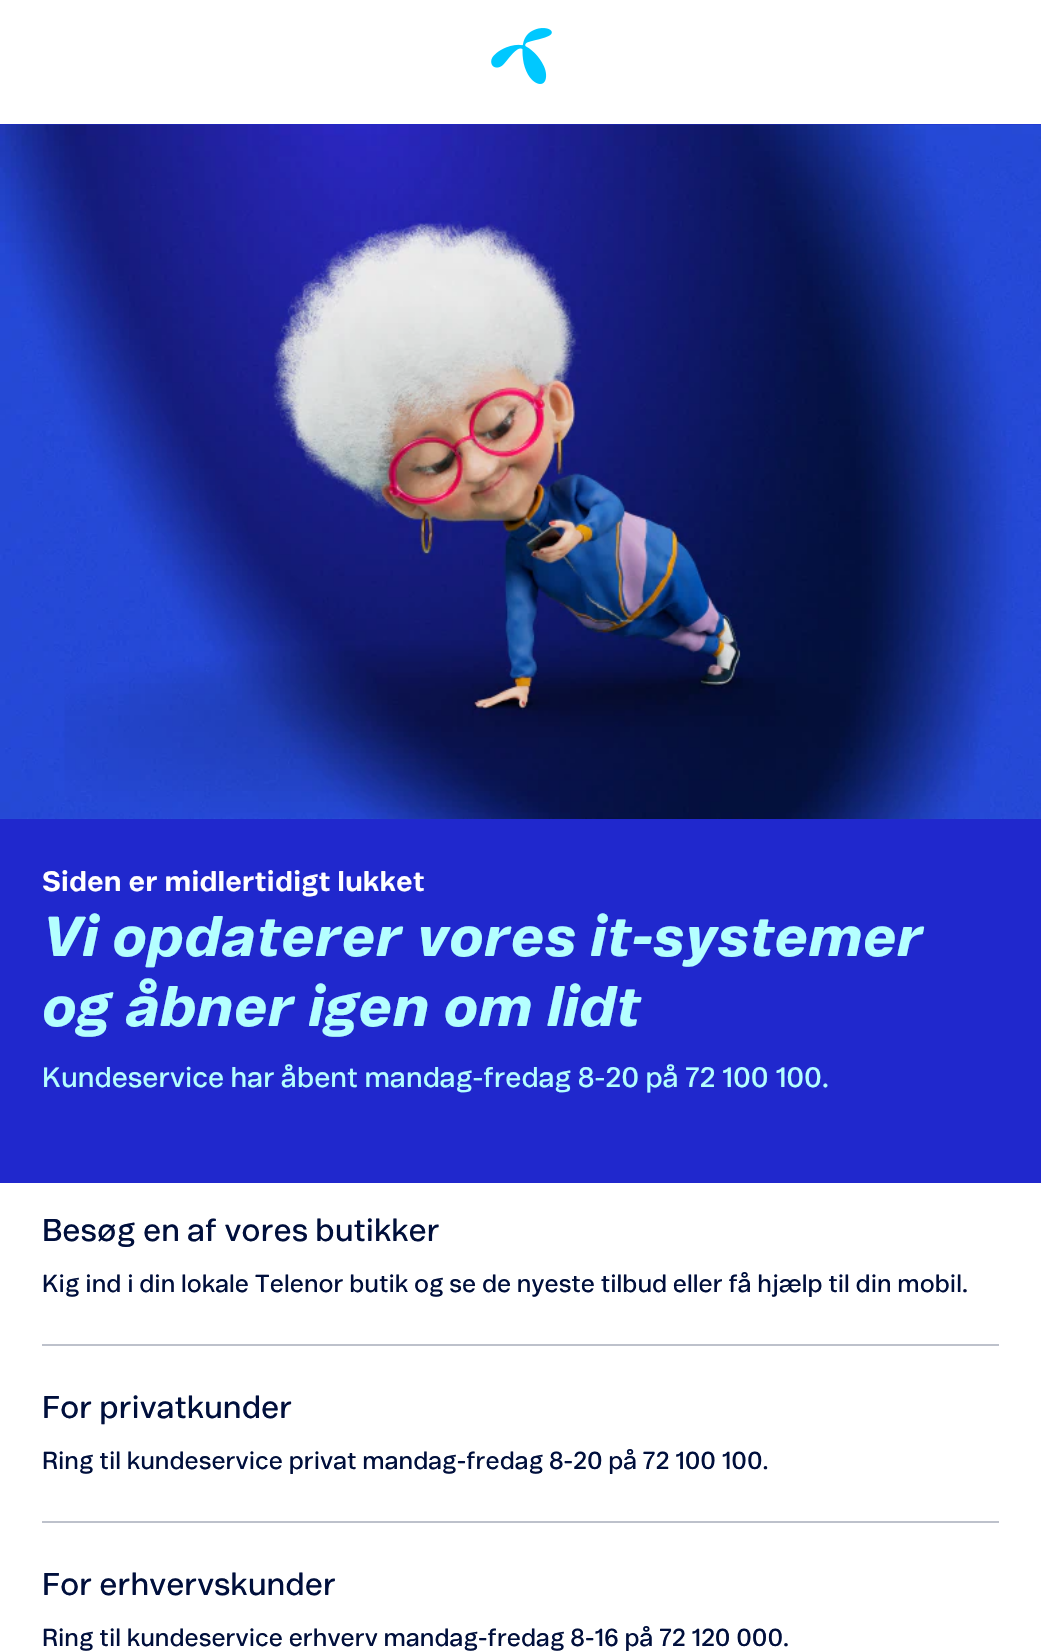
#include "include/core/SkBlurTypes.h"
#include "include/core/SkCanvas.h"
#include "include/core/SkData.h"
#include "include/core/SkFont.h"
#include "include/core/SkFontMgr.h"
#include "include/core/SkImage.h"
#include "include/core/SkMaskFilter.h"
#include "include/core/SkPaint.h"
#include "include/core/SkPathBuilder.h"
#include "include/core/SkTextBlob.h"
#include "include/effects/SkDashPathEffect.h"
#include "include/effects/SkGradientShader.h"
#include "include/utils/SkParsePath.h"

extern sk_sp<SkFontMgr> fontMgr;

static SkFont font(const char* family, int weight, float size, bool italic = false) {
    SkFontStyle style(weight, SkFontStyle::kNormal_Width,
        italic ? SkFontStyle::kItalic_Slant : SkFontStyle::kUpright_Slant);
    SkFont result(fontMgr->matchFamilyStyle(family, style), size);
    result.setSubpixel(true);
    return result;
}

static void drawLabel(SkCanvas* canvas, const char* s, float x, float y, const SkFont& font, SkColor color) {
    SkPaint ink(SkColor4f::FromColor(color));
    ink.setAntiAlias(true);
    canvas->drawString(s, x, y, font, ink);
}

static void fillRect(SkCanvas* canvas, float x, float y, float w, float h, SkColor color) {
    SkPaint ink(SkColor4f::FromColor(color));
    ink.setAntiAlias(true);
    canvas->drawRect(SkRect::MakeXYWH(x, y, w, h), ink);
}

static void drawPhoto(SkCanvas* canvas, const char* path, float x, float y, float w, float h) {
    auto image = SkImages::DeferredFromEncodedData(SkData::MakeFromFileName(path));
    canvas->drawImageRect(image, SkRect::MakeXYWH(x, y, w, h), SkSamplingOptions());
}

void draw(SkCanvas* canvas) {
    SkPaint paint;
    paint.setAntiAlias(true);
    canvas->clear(0xFFFFFFFF);
    drawPhoto(canvas, "assets/img1.png", 491, 28, 61, 56);
    fillRect(canvas, 0, 124, 1041, 1059, 0xFF2028CD);
    drawPhoto(canvas, "assets/img2.png", 0, 124, 1041, 695);
    SkFont font1 = font("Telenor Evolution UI", 700, 28);
    drawLabel(canvas, "Siden er midlertidigt lukket", 42, 891, font1, 0xFFFFFFFF);
    SkFont font2 = font("Telenor Evolution UI", 800, 56, true);
    drawLabel(canvas, "Vi opdaterer vores it-systemer", 42, 956, font2, 0xFFB4FFFF);
    drawLabel(canvas, "og åbner igen om lidt", 42, 1026, font2, 0xFFB4FFFF);
    SkFont font3 = font("Telenor Evolution UI", 400, 28);
    drawLabel(canvas, "Kundeservice har åbent mandag-fredag 8-20 på 72 100 100.", 42, 1087, font3, 0xFFB4FFFF);
    fillRect(canvas, 42, 1344, 957, 2, 0xFFBDC1CB);
    SkFont font4 = font("Telenor Evolution UI", 400, 31.5f);
    drawLabel(canvas, "Besøg en af vores butikker", 42, 1241, font4, 0xFF000F3C);
    SkFont font5 = font("Telenor Evolution UI", 400, 24.5f);
    drawLabel(canvas, "Kig ind i din lokale Telenor butik og se de nyeste tilbud eller få hjælp til din mobil.", 42, 1292, font5, 0xFF000F3C);
    fillRect(canvas, 42, 1521, 957, 2, 0xFFBDC1CB);
    drawLabel(canvas, "For privatkunder", 42, 1418, font4, 0xFF000F3C);
    drawLabel(canvas, "Ring til kundeservice privat mandag-fredag 8-20 på 72 100 100.", 42, 1469, font5, 0xFF000F3C);
    drawLabel(canvas, "For erhvervskunder", 42, 1595, font4, 0xFF000F3C);
    drawLabel(canvas, "Ring til kundeservice erhverv mandag-fredag 8-16 på 72 120 000.", 42, 1646, font5, 0xFF000F3C);
}
